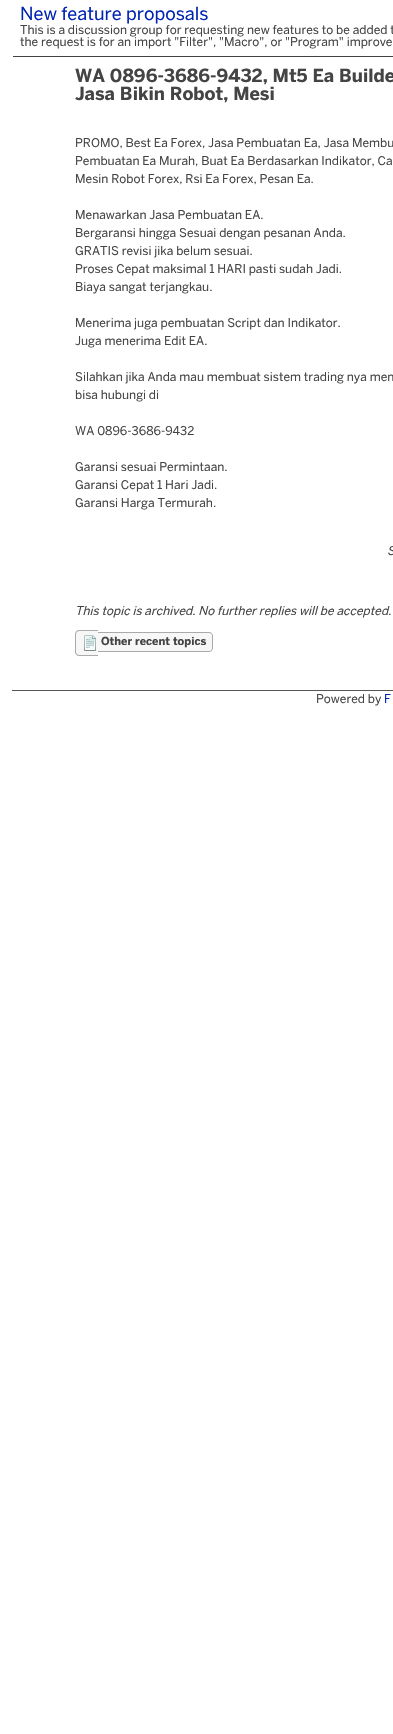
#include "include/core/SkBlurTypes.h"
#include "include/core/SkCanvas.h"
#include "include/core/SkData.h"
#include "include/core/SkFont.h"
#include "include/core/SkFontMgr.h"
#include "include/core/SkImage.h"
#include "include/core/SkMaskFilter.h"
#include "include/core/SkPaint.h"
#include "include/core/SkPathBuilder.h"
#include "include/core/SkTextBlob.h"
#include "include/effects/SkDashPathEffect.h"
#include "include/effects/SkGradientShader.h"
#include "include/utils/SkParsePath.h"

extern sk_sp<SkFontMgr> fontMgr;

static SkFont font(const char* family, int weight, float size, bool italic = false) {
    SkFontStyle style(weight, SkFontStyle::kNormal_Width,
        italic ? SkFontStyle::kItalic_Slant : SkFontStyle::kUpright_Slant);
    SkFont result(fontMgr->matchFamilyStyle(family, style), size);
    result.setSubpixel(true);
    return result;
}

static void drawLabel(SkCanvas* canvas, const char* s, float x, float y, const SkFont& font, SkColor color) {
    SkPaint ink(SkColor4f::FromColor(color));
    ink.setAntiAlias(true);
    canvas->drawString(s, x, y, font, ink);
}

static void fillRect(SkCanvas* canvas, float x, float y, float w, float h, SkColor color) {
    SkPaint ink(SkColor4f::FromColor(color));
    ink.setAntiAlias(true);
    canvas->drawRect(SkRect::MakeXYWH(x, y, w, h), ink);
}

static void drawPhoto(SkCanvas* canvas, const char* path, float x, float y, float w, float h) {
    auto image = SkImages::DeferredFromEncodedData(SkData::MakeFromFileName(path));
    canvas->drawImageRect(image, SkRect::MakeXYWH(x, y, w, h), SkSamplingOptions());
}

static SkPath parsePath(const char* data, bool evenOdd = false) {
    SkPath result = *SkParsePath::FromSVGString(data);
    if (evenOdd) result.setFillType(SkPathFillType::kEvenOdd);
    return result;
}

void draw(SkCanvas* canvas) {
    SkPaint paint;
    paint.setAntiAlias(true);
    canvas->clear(0xFFFFFFFF);
    SkFont font1 = font("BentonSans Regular", 400, 18);
    drawLabel(canvas, "New feature proposals", 20, 20, font1, 0xFF0024B3);
    fillRect(canvas, 13, 56, 380, 1, 0xFF444444);
    SkFont font2 = font("BentonSans Regular", 400, 12);
    drawLabel(canvas, "This is a discussion group for requesting new features to be added t", 20, 34, font2, 0xFF444444);
    drawLabel(canvas, "the request is for an import \"Filter\", \"Macro\", or \"Program\" improve", 20, 46, font2, 0xFF444444);
    SkFont font3 = font("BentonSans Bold", 700, 18);
    drawLabel(canvas, "WA 0896-3686-9432, Mt5 Ea Builde", 75, 82, font3, 0xFF444444);
    drawLabel(canvas, "Jasa Bikin Robot, Mesi", 75, 100, font3, 0xFF444444);
    drawLabel(canvas, "PROMO, Best Ea Forex, Jasa Pembuatan Ea, Jasa Membu", 75, 147, font2, 0xFF444444);
    drawLabel(canvas, "Pembuatan Ea Murah, Buat Ea Berdasarkan Indikator, Ca", 75, 165, font2, 0xFF444444);
    drawLabel(canvas, "Mesin Robot Forex, Rsi Ea Forex, Pesan Ea.", 75, 183, font2, 0xFF444444);
    drawLabel(canvas, "Menawarkan Jasa Pembuatan EA.", 75, 219, font2, 0xFF444444);
    drawLabel(canvas, "Bergaransi hingga Sesuai dengan pesanan Anda.", 75, 237, font2, 0xFF444444);
    drawLabel(canvas, "GRATIS revisi jika belum sesuai.", 75, 255, font2, 0xFF444444);
    drawLabel(canvas, "Proses Cepat maksimal 1 HARI pasti sudah Jadi.", 75, 273, font2, 0xFF444444);
    drawLabel(canvas, "Biaya sangat terjangkau.", 75, 291, font2, 0xFF444444);
    drawLabel(canvas, "Menerima juga pembuatan Script dan Indikator.", 75, 327, font2, 0xFF444444);
    drawLabel(canvas, "Juga menerima Edit EA.", 75, 345, font2, 0xFF444444);
    drawLabel(canvas, "Silahkan jika Anda mau membuat sistem trading nya men", 75, 381, font2, 0xFF444444);
    drawLabel(canvas, "bisa hubungi di", 75, 399, font2, 0xFF444444);
    drawLabel(canvas, "WA 0896-3686-9432", 75, 435, font2, 0xFF444444);
    drawLabel(canvas, "Garansi sesuai Permintaan.", 75, 471, font2, 0xFF444444);
    drawLabel(canvas, "Garansi Cepat 1 Hari Jadi.", 75, 489, font2, 0xFF444444);
    drawLabel(canvas, "Garansi Harga Termurah.", 75, 507, font2, 0xFF444444);
    SkFont font4 = font("BentonSans Regular", 400, 12, true);
    drawLabel(canvas, "S", 387, 555, font4, 0xFF444444);
    drawLabel(canvas, "This topic is archived. No further replies will be accepted.", 75, 615, font4, 0xFF444444);
    paint.setColor(0xFFF7F7F7);
    canvas->drawPath(parsePath("M79 630H98V656H79C77 656 75 654 75 652V634C75 632 77 630 79 630Z"), paint);
    paint.setColor(0xFFAAAAAA);
    canvas->drawPath(parsePath("M79 630H98V656H79C77 656 75 654 75 652V634C75 632 77 630 79 630ZM79 631H98V655H79C77.5 655 76 653.5 76 652V634C76 632.5 77.5 631 79 631Z", true), paint);
    drawPhoto(canvas, "assets/img1.png", 84, 635, 12, 16);
    paint.setColor(0xFFF7F7F7);
    canvas->drawPath(parsePath("M98 632H209C211 632 213 634 213 636V648C213 650 211 652 209 652H98Z"), paint);
    paint.setColor(0xFFAAAAAA);
    canvas->drawPath(parsePath("M98 632H209C211 632 213 634 213 636V648C213 650 211 652 209 652H98ZM98 633H209C211 633 212 634 212 636V648C212 650 211 651 209 651H98Z", true), paint);
    SkFont font5 = font("BentonSans Bold", 700, 11);
    drawLabel(canvas, "Other recent topics", 101, 645, font5, 0xFF444444);
    fillRect(canvas, 12, 690, 381, 1, 0xFF555555);
    drawLabel(canvas, "Powered by", 316, 703, font2, 0xFF444444);
    drawLabel(canvas, "F", 384, 703, font2, 0xFF0024B3);
}
